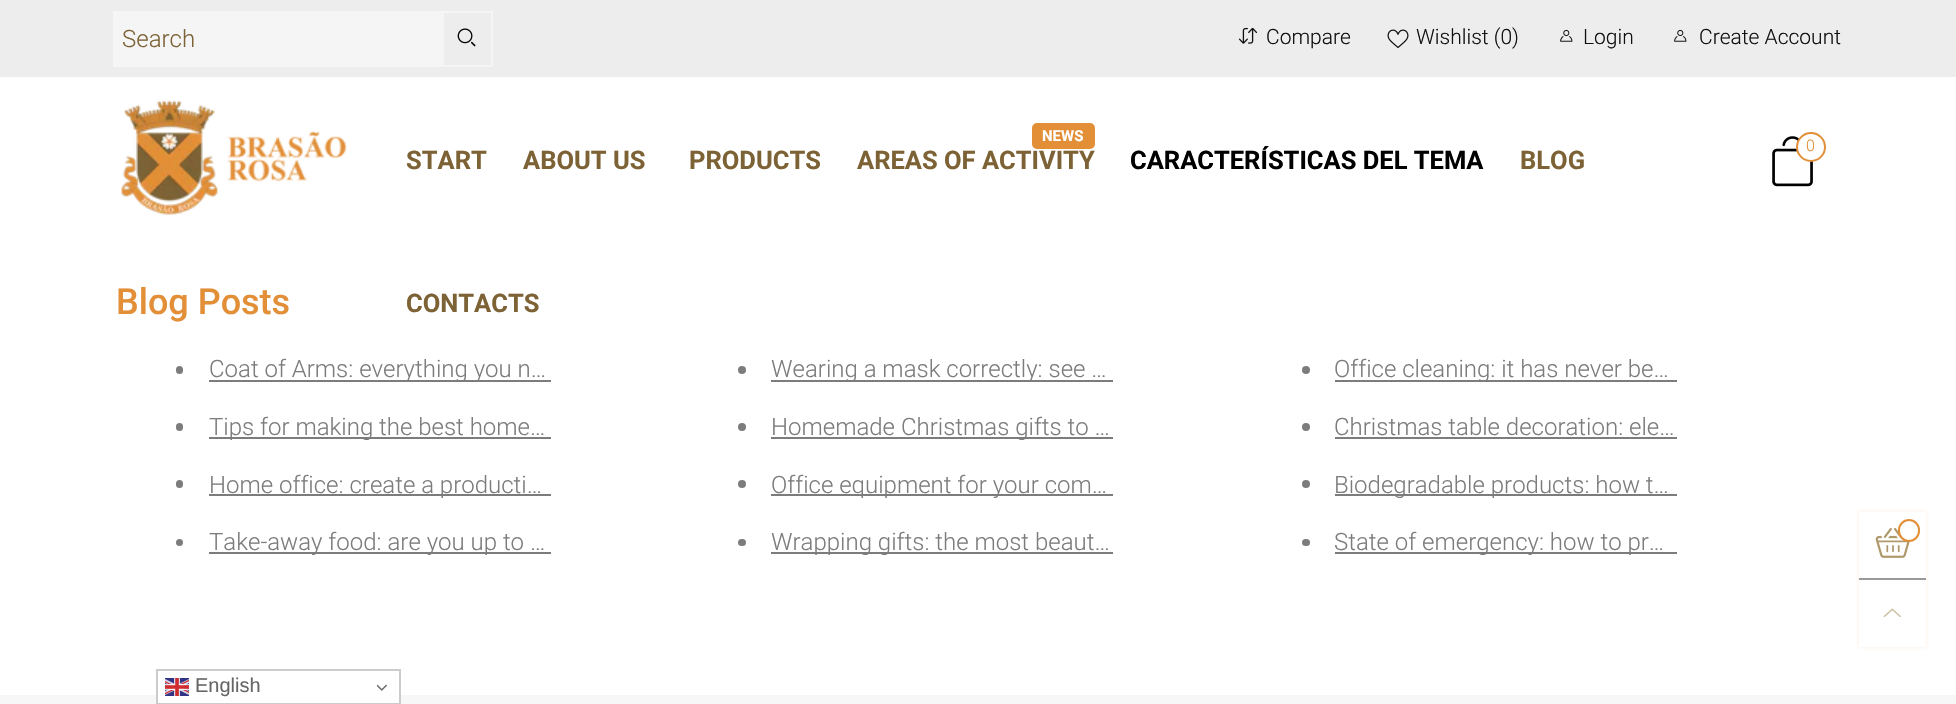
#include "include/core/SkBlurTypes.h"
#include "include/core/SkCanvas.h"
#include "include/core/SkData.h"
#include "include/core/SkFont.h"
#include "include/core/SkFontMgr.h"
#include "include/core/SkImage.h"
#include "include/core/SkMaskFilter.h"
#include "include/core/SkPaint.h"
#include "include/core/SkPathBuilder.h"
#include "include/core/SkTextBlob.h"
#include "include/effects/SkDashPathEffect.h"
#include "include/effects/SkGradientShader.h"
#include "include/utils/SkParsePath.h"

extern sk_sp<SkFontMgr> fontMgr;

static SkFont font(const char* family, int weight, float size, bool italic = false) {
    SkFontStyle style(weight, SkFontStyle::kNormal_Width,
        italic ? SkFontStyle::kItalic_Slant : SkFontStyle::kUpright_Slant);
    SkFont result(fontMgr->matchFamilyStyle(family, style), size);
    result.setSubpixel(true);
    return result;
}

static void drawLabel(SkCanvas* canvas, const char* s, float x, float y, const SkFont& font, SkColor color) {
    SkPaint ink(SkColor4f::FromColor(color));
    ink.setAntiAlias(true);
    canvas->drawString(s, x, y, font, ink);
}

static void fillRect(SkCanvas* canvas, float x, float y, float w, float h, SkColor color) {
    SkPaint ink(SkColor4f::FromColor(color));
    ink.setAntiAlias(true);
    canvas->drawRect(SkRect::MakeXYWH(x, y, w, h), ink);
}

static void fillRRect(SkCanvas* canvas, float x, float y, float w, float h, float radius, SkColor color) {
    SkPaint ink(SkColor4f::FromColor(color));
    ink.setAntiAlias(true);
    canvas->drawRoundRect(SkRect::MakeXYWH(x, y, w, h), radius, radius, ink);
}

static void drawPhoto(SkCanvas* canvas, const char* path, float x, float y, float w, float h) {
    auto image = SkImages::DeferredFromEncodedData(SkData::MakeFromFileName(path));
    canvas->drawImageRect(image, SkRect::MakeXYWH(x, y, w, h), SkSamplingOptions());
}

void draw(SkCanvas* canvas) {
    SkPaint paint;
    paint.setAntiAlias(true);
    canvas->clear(0xFFFFFFFF);
    fillRect(canvas, 0, 0, 1956, 77, 0xFFEDEDED);
    fillRect(canvas, 113, 11, 331, 56, 0xFFF5F5F5);
    SkFont font1 = font("Roboto", 300, 24);
    drawLabel(canvas, "Search", 122, 47, font1, 0xFF7C6235);
    fillRect(canvas, 444, 11, 48, 2, 0xFFF5F5F5);
    fillRect(canvas, 491, 11, 2, 55, 0xFFF5F5F5);
    fillRect(canvas, 444, 65, 48, 2, 0xFFF5F5F5);
    drawPhoto(canvas, "assets/img1.png", 457, 28, 19, 19);
    drawPhoto(canvas, "assets/img2.png", 1238, 27, 20, 17);
    SkFont font2 = font("Roboto", 300, 21);
    drawLabel(canvas, "Compare", 1266, 44, font2, 0xFF111111);
    drawPhoto(canvas, "assets/img3.png", 1387, 29, 22, 19);
    drawLabel(canvas, "Wishlist (0)", 1416, 44, font2, 0xFF111111);
    drawPhoto(canvas, "assets/img4.png", 1560, 29, 13, 13);
    drawLabel(canvas, "Login", 1583, 44, font2, 0xFF111111);
    drawPhoto(canvas, "assets/img4.png", 1674, 29, 13, 13);
    drawLabel(canvas, "Create Account", 1699, 44, font2, 0xFF111111);
    drawPhoto(canvas, "assets/img5.png", 121, 100, 226, 115);
    SkFont font3 = font("Roboto", 700, 25.5f);
    drawLabel(canvas, "START", 406, 169, font3, 0xFF7C6235);
    drawLabel(canvas, "ABOUT US", 523, 169, font3, 0xFF7C6235);
    drawLabel(canvas, "PRODUCTS", 689, 169, font3, 0xFF7C6235);
    fillRRect(canvas, 1032, 123, 63, 26, 5, 0xFFE28F38);
    SkFont font4 = font("Roboto", 700, 15);
    drawLabel(canvas, "NEWS", 1042, 141, font4, 0xFFFFFFFF);
    drawLabel(canvas, "AREAS OF ACTIVITY", 857, 169, font3, 0xFF7C6235);
    drawLabel(canvas, "CARACTERÍSTICAS DEL TEMA", 1130, 169, font3, 0xFF000000);
    drawLabel(canvas, "BLOG", 1520, 169, font3, 0xFF7C6235);
    drawLabel(canvas, "CONTACTS", 406, 312, font3, 0xFF7C6235);
    drawPhoto(canvas, "assets/img6.png", 1772, 136, 41, 51);
    paint.setColor(0xFFFFFFFF);
    canvas->drawCircle(1811, 147, 14, paint);
    paint.setStroke(true);
    paint.setStrokeWidth(2);
    paint.setColor(0xFFE28F38);
    canvas->drawCircle(1811, 147, 14, paint);
    SkFont font5 = font("Roboto", 300, 16);
    drawLabel(canvas, "0", 1806, 151, font5, 0xFFE28F38);
    SkFont font6 = font("Roboto", 500, 36);
    drawLabel(canvas, "Blog Posts", 116, 314, font6, 0xFFE28F38);
    fillRRect(canvas, 176, 366, 7, 8, 3.5f, 0xFF7C7C7C);
    fillRect(canvas, 209, 380, 342, 2, 0xFF7C7C7C);
    drawLabel(canvas, "Coat of Arms: everything you n…", 209, 377, font1, 0xFF7C7C7C);
    paint.setStroke(false);
    paint.setColor(0xFF7C7C7C);
    canvas->drawCircle(742, 370, 4, paint);
    fillRect(canvas, 771, 380, 342, 2, 0xFF7C7C7C);
    drawLabel(canvas, "Wearing a mask correctly: see …", 771, 377, font1, 0xFF7C7C7C);
    canvas->drawCircle(1306, 370, 4, paint);
    fillRect(canvas, 1335, 380, 342, 2, 0xFF7C7C7C);
    drawLabel(canvas, "Office cleaning: it has never be…", 1334, 377, font1, 0xFF7C7C7C);
    fillRRect(canvas, 176, 423, 7, 8, 3.5f, 0xFF7C7C7C);
    fillRect(canvas, 209, 437, 342, 2, 0xFF7C7C7C);
    drawLabel(canvas, "Tips for making the best home…", 209, 435, font1, 0xFF7C7C7C);
    canvas->drawCircle(742, 427, 4, paint);
    fillRect(canvas, 771, 437, 342, 2, 0xFF7C7C7C);
    drawLabel(canvas, "Homemade Christmas gifts to …", 771, 435, font1, 0xFF7C7C7C);
    canvas->drawCircle(1306, 427, 4, paint);
    drawLabel(canvas, "Christmas table decoration: ele…", 1334, 435, font1, 0xFF7C7C7C);
    fillRect(canvas, 1335, 437, 342, 2, 0xFF7C7C7C);
    fillRRect(canvas, 176, 480, 7, 8, 3.5f, 0xFF7C7C7C);
    fillRect(canvas, 209, 494, 342, 2, 0xFF7C7C7C);
    drawLabel(canvas, "Home office: create a producti…", 209, 493, font1, 0xFF7C7C7C);
    canvas->drawCircle(742, 484, 4, paint);
    fillRect(canvas, 771, 494, 342, 2, 0xFF7C7C7C);
    drawLabel(canvas, "Office equipment for your com…", 771, 493, font1, 0xFF7C7C7C);
    canvas->drawCircle(1306, 484, 4, paint);
    fillRect(canvas, 1335, 494, 342, 2, 0xFF7C7C7C);
    drawLabel(canvas, "Biodegradable products: how t…", 1334, 493, font1, 0xFF7C7C7C);
    canvas->drawCircle(179.5f, 542.5f, 3.5f, paint);
    fillRect(canvas, 209, 552, 342, 2, 0xFF7C7C7C);
    drawLabel(canvas, "Take-away food: are you up to …", 209, 550, font1, 0xFF7C7C7C);
    fillRRect(canvas, 738, 539, 8, 7, 3.5f, 0xFF7C7C7C);
    fillRect(canvas, 771, 552, 342, 2, 0xFF7C7C7C);
    drawLabel(canvas, "Wrapping gifts: the most beaut…", 771, 550, font1, 0xFF7C7C7C);
    fillRRect(canvas, 1302, 539, 8, 7, 3.5f, 0xFF7C7C7C);
    fillRect(canvas, 1335, 552, 342, 2, 0xFF7C7C7C);
    drawLabel(canvas, "State of emergency: how to pr…", 1334, 550, font1, 0xFF7C7C7C);
    paint.setColor(0x26E28F38);
    paint.setMaskFilter(SkMaskFilter::MakeBlur(kNormal_SkBlurStyle, 2));
    canvas->drawRect(SkRect::MakeXYWH(1859, 512, 67, 135), paint);
    paint.setMaskFilter(nullptr);
    fillRect(canvas, 1859, 512, 67, 135, 0xFFFFFFFF);
    fillRect(canvas, 1859, 578, 67, 2, 0xFF999999);
    drawPhoto(canvas, "assets/img7.png", 1875, 527, 35, 31);
    paint.setColor(0xFFFFFFFF);
    canvas->drawRoundRect(SkRect::MakeXYWH(1899, 520, 20, 21), 10, 10, paint);
    paint.setStroke(true);
    paint.setColor(0xFFE28F38);
    canvas->drawRoundRect(SkRect::MakeXYWH(1899, 520, 20, 21), 10, 10, paint);
    drawPhoto(canvas, "assets/img8.png", 1883, 608, 18, 9);
    fillRect(canvas, 0, 695, 1956, 9, 0xFFF7F7F7);
    fillRect(canvas, 158, 695, 241, 8, 0xFFFFFFFF);
    paint.setColor(0xFFCCCCCC);
    canvas->drawRect(SkRect::MakeXYWH(157, 670, 243, 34), paint);
    drawPhoto(canvas, "assets/img9.png", 165, 678, 24, 18);
    SkFont font7 = font("Liberation Sans", 400, 20);
    drawLabel(canvas, "English", 195, 692, font7, 0xFF666666);
    drawPhoto(canvas, "assets/img10.png", 377, 684, 10, 7);
}
